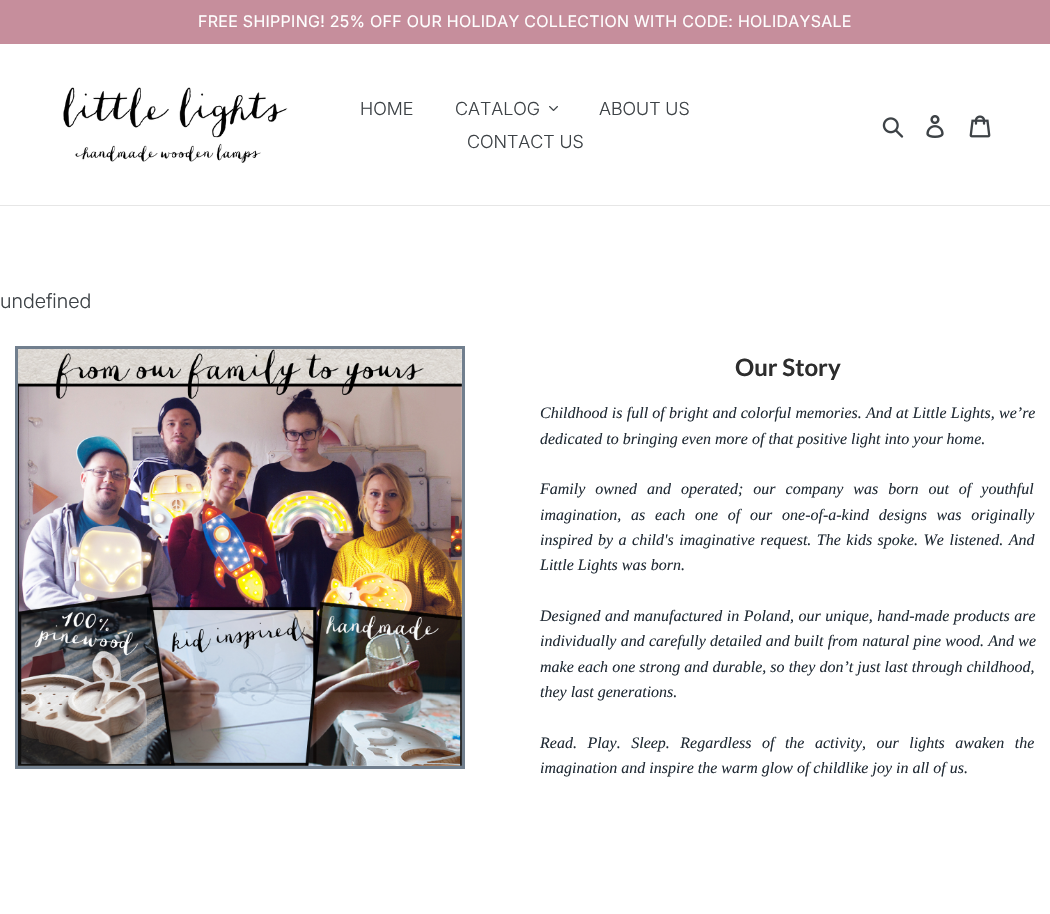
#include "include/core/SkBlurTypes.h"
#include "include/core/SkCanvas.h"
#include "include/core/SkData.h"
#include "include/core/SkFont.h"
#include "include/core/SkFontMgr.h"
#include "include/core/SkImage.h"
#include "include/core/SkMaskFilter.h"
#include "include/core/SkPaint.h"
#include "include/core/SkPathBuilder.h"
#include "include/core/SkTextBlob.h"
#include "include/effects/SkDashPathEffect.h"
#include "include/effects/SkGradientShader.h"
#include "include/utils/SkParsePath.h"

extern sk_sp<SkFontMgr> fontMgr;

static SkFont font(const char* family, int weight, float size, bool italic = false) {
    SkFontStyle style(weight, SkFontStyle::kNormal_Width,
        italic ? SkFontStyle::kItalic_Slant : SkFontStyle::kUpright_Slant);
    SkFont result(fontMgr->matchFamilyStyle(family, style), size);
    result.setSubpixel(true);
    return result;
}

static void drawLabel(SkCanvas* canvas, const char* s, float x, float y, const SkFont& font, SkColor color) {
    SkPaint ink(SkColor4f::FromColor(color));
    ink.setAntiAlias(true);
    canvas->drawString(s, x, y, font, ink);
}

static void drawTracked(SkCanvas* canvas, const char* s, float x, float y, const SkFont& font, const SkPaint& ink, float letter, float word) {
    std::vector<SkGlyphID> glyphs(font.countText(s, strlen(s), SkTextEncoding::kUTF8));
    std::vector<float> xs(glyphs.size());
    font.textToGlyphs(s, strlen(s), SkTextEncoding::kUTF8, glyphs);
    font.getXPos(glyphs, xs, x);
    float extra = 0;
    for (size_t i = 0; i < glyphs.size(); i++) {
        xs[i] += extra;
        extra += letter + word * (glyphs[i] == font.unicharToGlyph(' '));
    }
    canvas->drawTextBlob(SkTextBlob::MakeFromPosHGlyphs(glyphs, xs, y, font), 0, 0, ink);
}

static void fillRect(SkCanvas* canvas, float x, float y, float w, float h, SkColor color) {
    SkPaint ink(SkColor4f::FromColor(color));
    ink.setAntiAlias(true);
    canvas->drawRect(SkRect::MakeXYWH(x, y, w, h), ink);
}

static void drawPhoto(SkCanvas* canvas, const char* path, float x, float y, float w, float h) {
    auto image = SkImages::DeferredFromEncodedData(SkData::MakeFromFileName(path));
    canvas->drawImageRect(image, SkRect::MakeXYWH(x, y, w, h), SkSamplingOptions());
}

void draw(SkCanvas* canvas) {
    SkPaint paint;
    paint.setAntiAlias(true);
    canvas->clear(0xFFFFFFFF);
    fillRect(canvas, 0, 0, 1050, 44, 0xFFC68E9C);
    SkFont font1 = font("Inter", 400, 16);
    paint.setColor(0xFFFFFFFF);
    drawTracked(canvas, "FREE SHIPPING! 25% OFF OUR HOLIDAY COLLECTION WITH CODE: HOLIDAYSALE", 198, 27, font1, paint, 0.32f, 0);
    fillRect(canvas, 0, 205, 1050, 1, 0xFFE6E6E6);
    drawPhoto(canvas, "assets/img1.png", 63, 87, 225, 76);
    SkFont font2 = font("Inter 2", 300, 18);
    drawLabel(canvas, "HOME", 360, 115, font2, 0xFF3D4246);
    drawLabel(canvas, "CATALOG", 455, 115, font2, 0xFF3D4246);
    drawPhoto(canvas, "assets/img2.png", 549, 106, 9, 5);
    drawLabel(canvas, "ABOUT US", 599, 115, font2, 0xFF3D4246);
    drawLabel(canvas, "CONTACT US", 467, 148, font2, 0xFF3D4246);
    drawPhoto(canvas, "assets/img3.png", 882, 117, 22, 21);
    drawPhoto(canvas, "assets/img4.png", 926, 115, 18, 23);
    drawPhoto(canvas, "assets/img5.png", 969, 115, 22, 23);
    SkFont font3 = font("Inter", 300, 20);
    drawLabel(canvas, "undefined", 0, 308, font3, 0xFF3D4246);
    paint.setStroke(true);
    paint.setStrokeWidth(3);
    paint.setColor(0xFF717F8E);
    canvas->drawRect(SkRect::MakeXYWH(16.5f, 347.5f, 447, 420), paint);
    drawPhoto(canvas, "assets/img6.png", 18, 349, 444, 417);
    SkFont font4 = font("Lato", 700, 24);
    drawLabel(canvas, "Our Story", 735, 376, font4, 0xFF2D2D2D);
    SkFont font5 = font("Liberation Serif", 400, 16, true);
    paint.setStroke(false);
    paint.setColor(0xFF212B35);
    drawTracked(canvas, "Childhood is full of bright and colorful memories. And at Little Lights, we’re", 540, 418, font5, paint, 0, 0.25f);
    drawLabel(canvas, "dedicated to bringing even more of that positive light into your home.", 540, 444, font5, 0xFF212B35);
    drawTracked(canvas, "Family owned and operated; our company was born out of youthful", 540, 494, font5, paint, 0, 6);
    drawTracked(canvas, "imagination, as each one of our one-of-a-kind designs was originally", 540, 520, font5, paint, 0, 5.75f);
    drawTracked(canvas, "inspired by a child's imaginative request. The kids spoke. We listened. And", 540, 545, font5, paint, 0, 1.5f);
    drawLabel(canvas, "Little Lights was born.", 540, 570, font5, 0xFF212B35);
    drawTracked(canvas, "Designed and manufactured in Poland, our unique, hand-made products are", 540, 621, font5, paint, 0, 0.5f);
    drawTracked(canvas, "individually and carefully detailed and built from natural pine wood. And we", 540, 646, font5, paint, 0, 0.25f);
    drawTracked(canvas, "make each one strong and durable, so they don’t just last through childhood,", 540, 672, font5, paint, 0, 0.1f);
    drawLabel(canvas, "they last generations.", 540, 697, font5, 0xFF212B35);
    drawTracked(canvas, "Read. Play. Sleep. Regardless of the activity, our lights awaken the", 540, 748, font5, paint, 0, 6.5f);
    drawLabel(canvas, "imagination and inspire the warm glow of childlike joy in all of us.", 540, 773, font5, 0xFF212B35);
}
